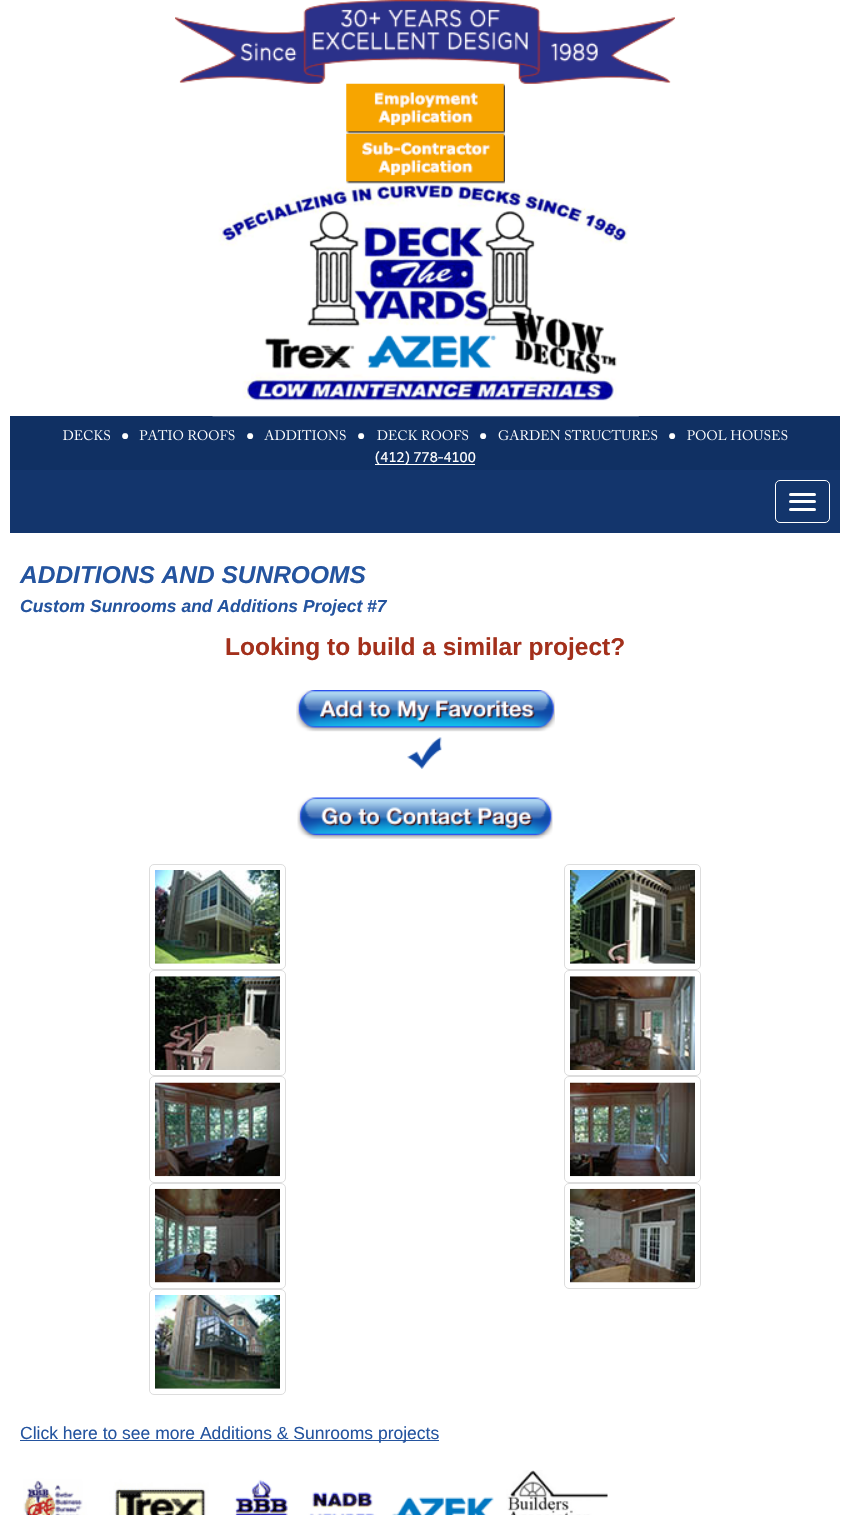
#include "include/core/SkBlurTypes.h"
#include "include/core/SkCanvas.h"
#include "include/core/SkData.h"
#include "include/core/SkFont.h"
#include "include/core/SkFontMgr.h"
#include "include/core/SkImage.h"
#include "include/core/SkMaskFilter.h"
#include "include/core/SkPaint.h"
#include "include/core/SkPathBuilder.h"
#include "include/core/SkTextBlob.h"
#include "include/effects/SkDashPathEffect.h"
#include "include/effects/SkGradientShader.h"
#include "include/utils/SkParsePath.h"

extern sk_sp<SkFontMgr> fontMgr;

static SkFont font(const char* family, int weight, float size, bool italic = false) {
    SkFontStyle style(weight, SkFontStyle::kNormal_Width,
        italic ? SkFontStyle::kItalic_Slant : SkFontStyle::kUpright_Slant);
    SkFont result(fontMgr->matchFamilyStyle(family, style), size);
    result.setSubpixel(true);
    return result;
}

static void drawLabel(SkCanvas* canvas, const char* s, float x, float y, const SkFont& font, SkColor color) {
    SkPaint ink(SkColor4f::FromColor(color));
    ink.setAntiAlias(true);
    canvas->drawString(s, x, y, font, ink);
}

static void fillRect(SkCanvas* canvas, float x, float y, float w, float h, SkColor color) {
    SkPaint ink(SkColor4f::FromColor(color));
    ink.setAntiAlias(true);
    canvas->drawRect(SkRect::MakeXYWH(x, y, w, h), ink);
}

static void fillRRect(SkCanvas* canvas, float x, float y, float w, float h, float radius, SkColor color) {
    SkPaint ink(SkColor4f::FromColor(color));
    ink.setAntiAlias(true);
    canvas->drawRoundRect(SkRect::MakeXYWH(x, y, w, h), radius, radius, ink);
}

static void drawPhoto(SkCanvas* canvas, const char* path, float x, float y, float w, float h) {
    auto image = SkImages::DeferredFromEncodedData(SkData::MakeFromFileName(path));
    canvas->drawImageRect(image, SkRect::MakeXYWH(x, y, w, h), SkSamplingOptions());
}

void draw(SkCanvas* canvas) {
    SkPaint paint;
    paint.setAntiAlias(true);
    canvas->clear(0xFFFFFFFF);
    drawPhoto(canvas, "assets/img1.png", 175, 0, 500, 84);
    drawPhoto(canvas, "assets/img2.png", 346, 83, 159, 51);
    drawPhoto(canvas, "assets/img3.png", 346, 133, 159, 51);
    fillRect(canvas, 10, 416, 830, 54, 0xFF103063);
    drawPhoto(canvas, "assets/img4.png", 212, 183, 427, 234);
    drawPhoto(canvas, "assets/img5.png", 62, 430, 48, 11);
    SkFont font1 = font("Liberation Serif", 400, 13.75f);
    drawLabel(canvas, "●", 121, 440, font1, 0xFFFFFFFF);
    drawPhoto(canvas, "assets/img6.png", 139, 429, 96, 12);
    drawLabel(canvas, "●", 246, 440, font1, 0xFFFFFFFF);
    drawPhoto(canvas, "assets/img7.png", 264, 429, 82, 12);
    drawLabel(canvas, "●", 357, 440, font1, 0xFFFFFFFF);
    drawPhoto(canvas, "assets/img8.png", 377, 430, 92, 11);
    drawLabel(canvas, "●", 479, 440, font1, 0xFFFFFFFF);
    drawPhoto(canvas, "assets/img9.png", 498, 429, 160, 12);
    drawLabel(canvas, "●", 668, 440, font1, 0xFFFFFFFF);
    drawPhoto(canvas, "assets/img10.png", 687, 430, 101, 11);
    fillRect(canvas, 375, 464, 100, 1, 0xFFFFFFFF);
    SkFont font2 = font("Andika", 400, 13.75f);
    drawLabel(canvas, "(412) 778-4100", 375, 462, font2, 0xFFFFFFFF);
    fillRect(canvas, 10, 470, 830, 63, 0xFF13356C);
    paint.setStroke(true);
    paint.setStrokeWidth(1);
    paint.setColor(0xFFFFFFFF);
    canvas->drawRoundRect(SkRect::MakeXYWH(775.5f, 480.5f, 54, 42), 4.5f, 4.5f, paint);
    fillRRect(canvas, 789, 493, 27, 3, 1.5f, 0xFFFFFFFF);
    fillRRect(canvas, 789, 500, 27, 3, 1.5f, 0xFFFFFFFF);
    fillRRect(canvas, 789, 508, 27, 3, 1.5f, 0xFFFFFFFF);
    SkFont font3 = font("Liberation Sans", 700, 24.5f, true);
    drawLabel(canvas, "ADDITIONS AND SUNROOMS", 20, 583, font3, 0xFF24549F);
    SkFont font4 = font("Liberation Sans", 700, 17.5f, true);
    drawLabel(canvas, "Custom Sunrooms and Additions Project #7", 20, 612, font4, 0xFF24549F);
    SkFont font5 = font("Liberation Sans", 700, 24.5f);
    drawLabel(canvas, "Looking to build a similar project?", 225, 655, font5, 0xFFA3301B);
    drawPhoto(canvas, "assets/img11.png", 296, 690, 259, 42);
    drawPhoto(canvas, "assets/img12.png", 407, 737, 35, 32);
    drawPhoto(canvas, "assets/img13.png", 297, 797, 256, 42);
    paint.setColor(0xFFDDDDDD);
    canvas->drawRoundRect(SkRect::MakeXYWH(149.5f, 864.5f, 136, 105), 4.5f, 4.5f, paint);
    drawPhoto(canvas, "assets/img14.png", 155, 870, 125, 94);
    canvas->drawRoundRect(SkRect::MakeXYWH(564.5f, 864.5f, 136, 105), 4.5f, 4.5f, paint);
    drawPhoto(canvas, "assets/img15.png", 570, 870, 125, 94);
    canvas->drawRoundRect(SkRect::MakeXYWH(149.5f, 970.5f, 136, 105), 4.5f, 4.5f, paint);
    drawPhoto(canvas, "assets/img16.png", 155, 976, 125, 94);
    canvas->drawRoundRect(SkRect::MakeXYWH(564.5f, 970.5f, 136, 105), 4.5f, 4.5f, paint);
    drawPhoto(canvas, "assets/img17.png", 570, 976, 125, 94);
    canvas->drawRoundRect(SkRect::MakeXYWH(149.5f, 1076.5f, 136, 106), 4.5f, 4.5f, paint);
    drawPhoto(canvas, "assets/img18.png", 155, 1082, 125, 95);
    canvas->drawRoundRect(SkRect::MakeXYWH(564.5f, 1076.5f, 136, 106), 4.5f, 4.5f, paint);
    drawPhoto(canvas, "assets/img19.png", 570, 1082, 125, 95);
    canvas->drawRoundRect(SkRect::MakeXYWH(149.5f, 1183.5f, 136, 105), 4.5f, 4.5f, paint);
    drawPhoto(canvas, "assets/img20.png", 155, 1188, 125, 95);
    canvas->drawRoundRect(SkRect::MakeXYWH(564.5f, 1183.5f, 136, 105), 4.5f, 4.5f, paint);
    drawPhoto(canvas, "assets/img21.png", 570, 1188, 125, 95);
    canvas->drawRoundRect(SkRect::MakeXYWH(149.5f, 1289.5f, 136, 105), 4.5f, 4.5f, paint);
    drawPhoto(canvas, "assets/img22.png", 155, 1295, 125, 94);
    fillRect(canvas, 20, 1440, 419, 1, 0xFF24549F);
    SkFont font6 = font("Liberation Sans", 400, 17.5f);
    drawLabel(canvas, "Click here to see more Additions & Sunrooms projects", 20, 1439, font6, 0xFF24549F);
    drawPhoto(canvas, "assets/img23.png", 23, 1470, 585, 45);
}
